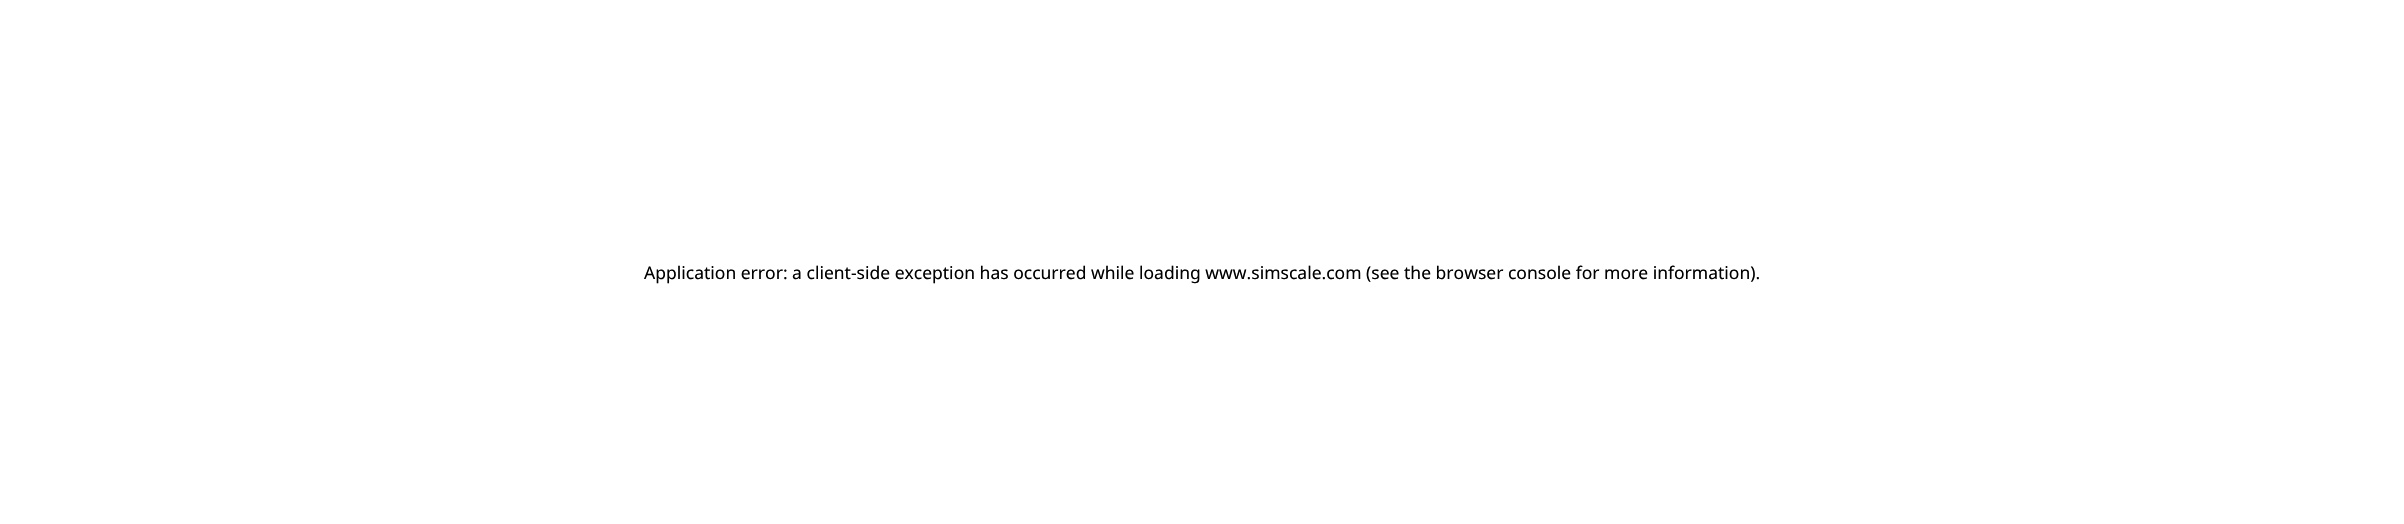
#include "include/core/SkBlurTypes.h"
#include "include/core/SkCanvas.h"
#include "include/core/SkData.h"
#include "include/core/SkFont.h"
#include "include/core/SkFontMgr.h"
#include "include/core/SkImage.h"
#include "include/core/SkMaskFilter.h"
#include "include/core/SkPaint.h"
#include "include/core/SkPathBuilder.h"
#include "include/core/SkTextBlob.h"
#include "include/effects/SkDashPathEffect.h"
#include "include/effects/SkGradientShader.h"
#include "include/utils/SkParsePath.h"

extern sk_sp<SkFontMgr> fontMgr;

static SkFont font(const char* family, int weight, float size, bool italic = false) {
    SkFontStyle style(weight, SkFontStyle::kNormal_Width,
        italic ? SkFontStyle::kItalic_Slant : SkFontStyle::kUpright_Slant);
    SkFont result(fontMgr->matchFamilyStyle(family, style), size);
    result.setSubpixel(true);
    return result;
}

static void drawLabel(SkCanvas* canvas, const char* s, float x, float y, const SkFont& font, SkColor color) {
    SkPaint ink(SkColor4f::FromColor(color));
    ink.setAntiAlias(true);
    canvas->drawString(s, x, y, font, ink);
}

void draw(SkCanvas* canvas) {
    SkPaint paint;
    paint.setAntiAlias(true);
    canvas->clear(0xFFFFFFFF);
    SkFont font1 = font("Noto Sans", 400, 17.5f);
    drawLabel(canvas, "Application error: a client-side exception has occurred while loading www.simscale.com (see the browser console for more information).", 644, 279, font1, 0xFF000000);
}
